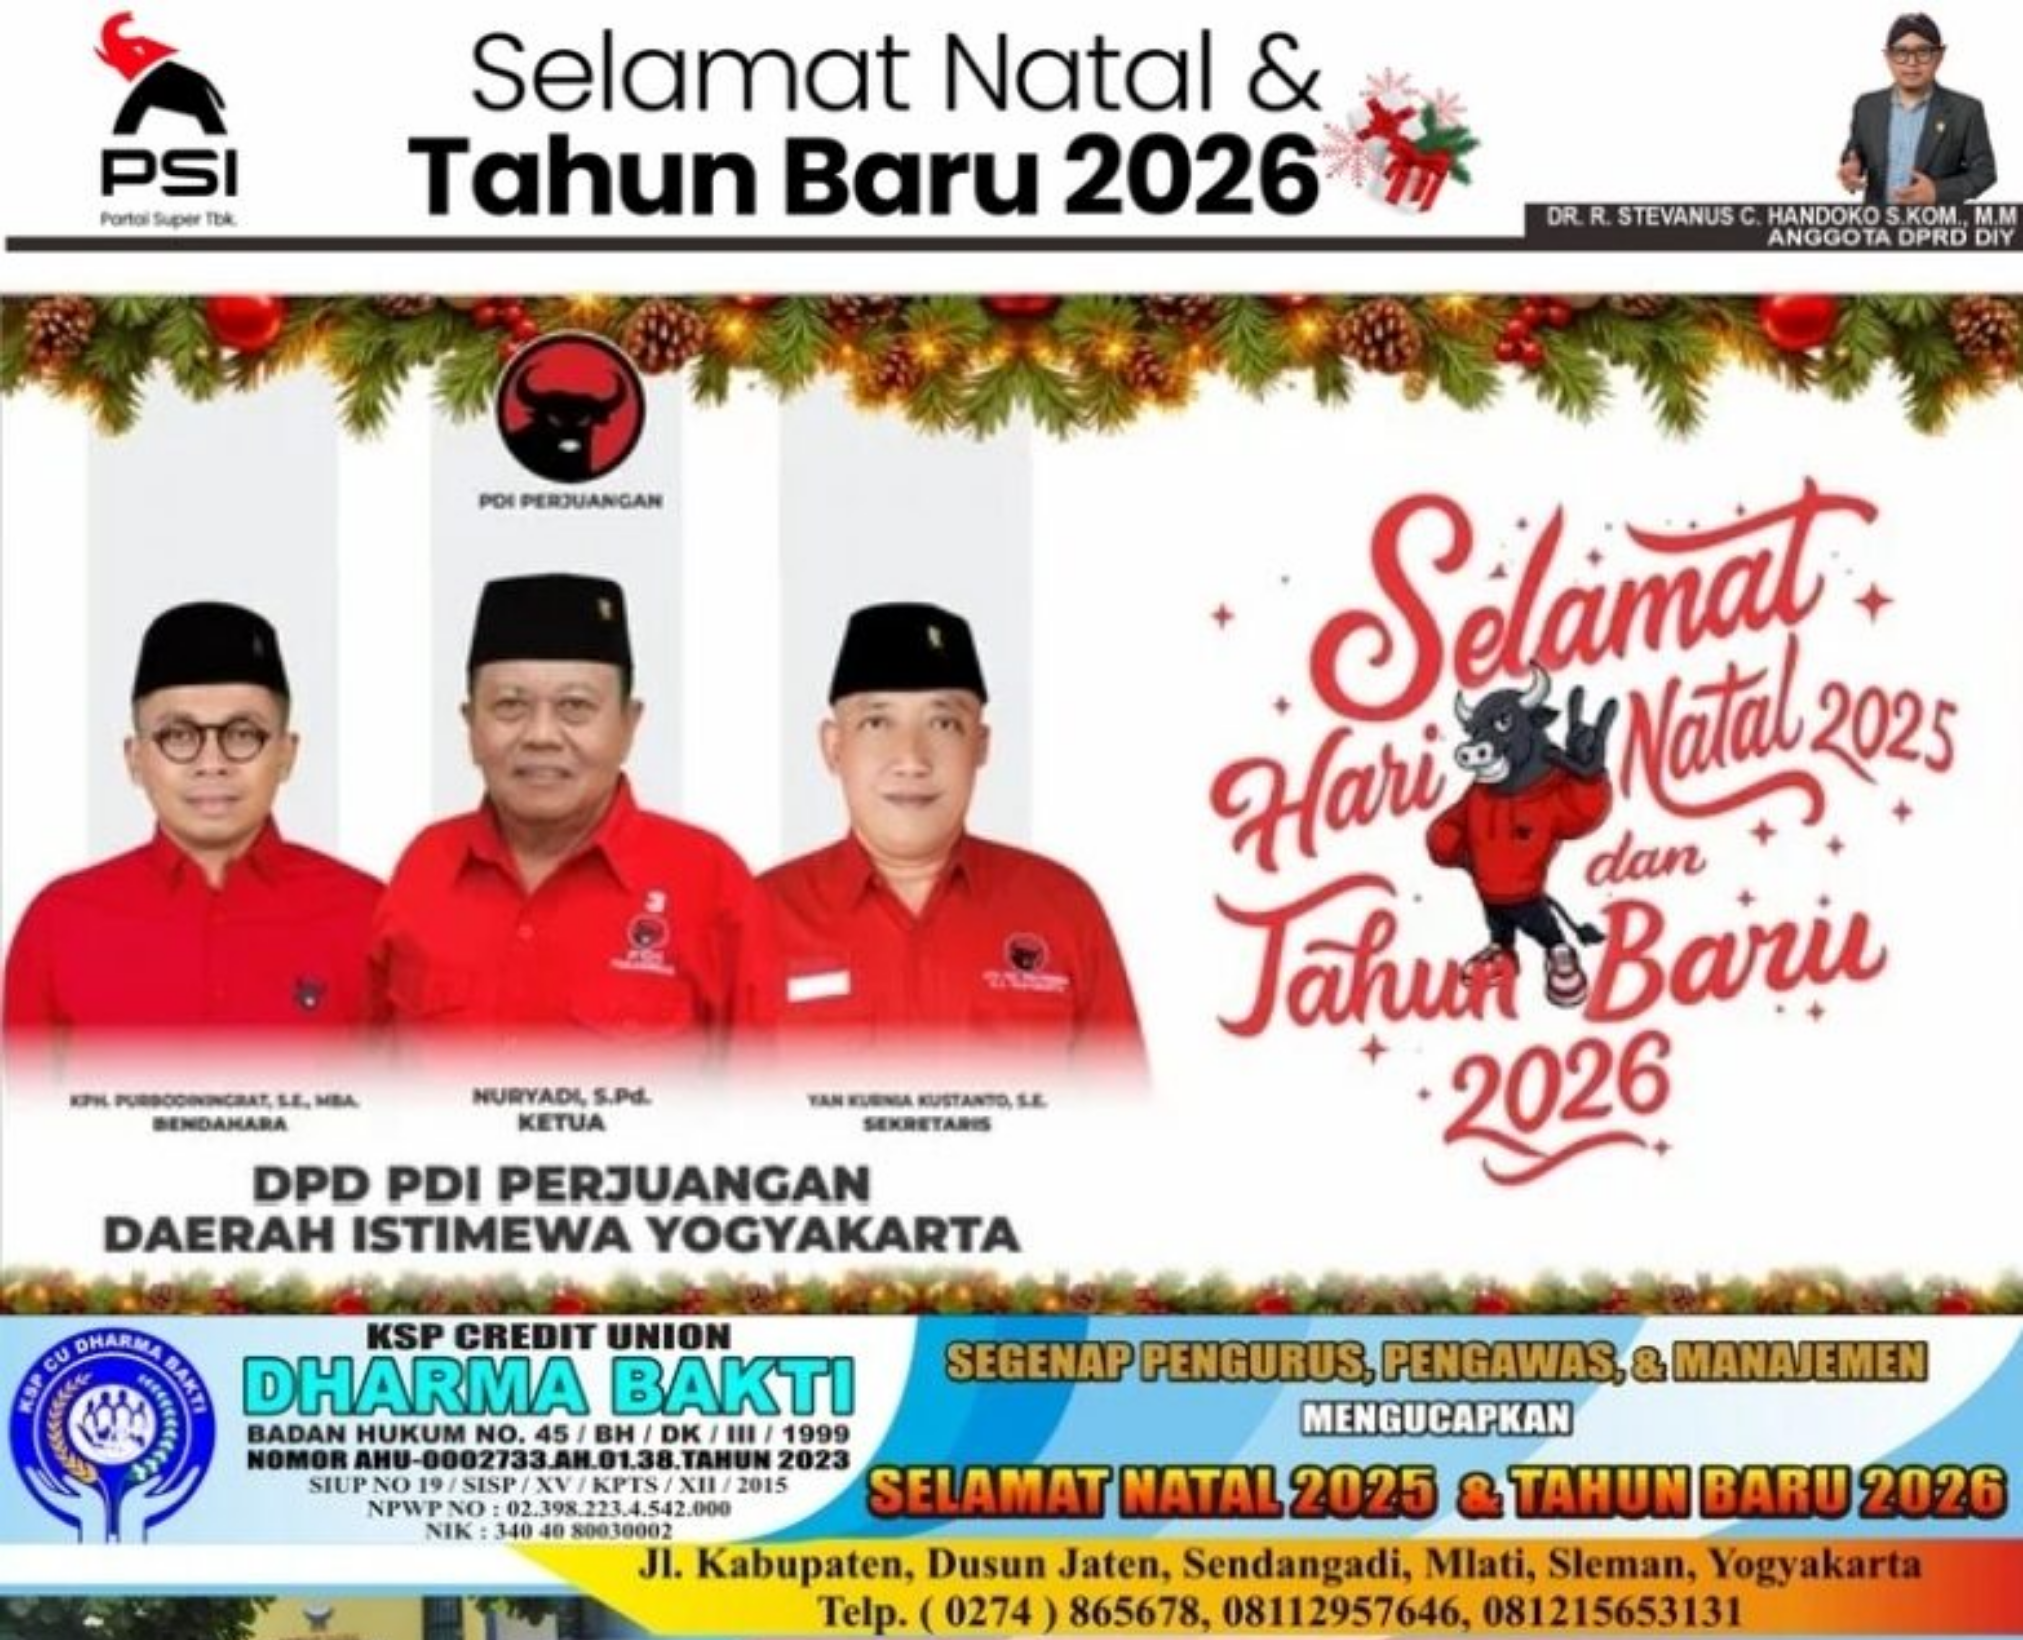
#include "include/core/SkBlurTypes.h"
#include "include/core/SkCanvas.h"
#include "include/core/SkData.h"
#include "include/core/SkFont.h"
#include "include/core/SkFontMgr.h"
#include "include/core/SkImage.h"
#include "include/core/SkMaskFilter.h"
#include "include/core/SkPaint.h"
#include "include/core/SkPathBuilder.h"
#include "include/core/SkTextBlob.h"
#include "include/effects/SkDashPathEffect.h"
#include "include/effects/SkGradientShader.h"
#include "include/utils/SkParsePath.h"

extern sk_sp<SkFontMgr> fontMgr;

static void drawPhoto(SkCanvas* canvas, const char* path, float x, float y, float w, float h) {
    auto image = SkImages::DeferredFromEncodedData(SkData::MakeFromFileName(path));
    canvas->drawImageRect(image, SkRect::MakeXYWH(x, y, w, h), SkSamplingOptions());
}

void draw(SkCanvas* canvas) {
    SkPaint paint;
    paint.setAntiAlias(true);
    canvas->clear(0xFFFFFFFF);
    drawPhoto(canvas, "assets/img1.png", 0, 0, 2023, 1640);
}
